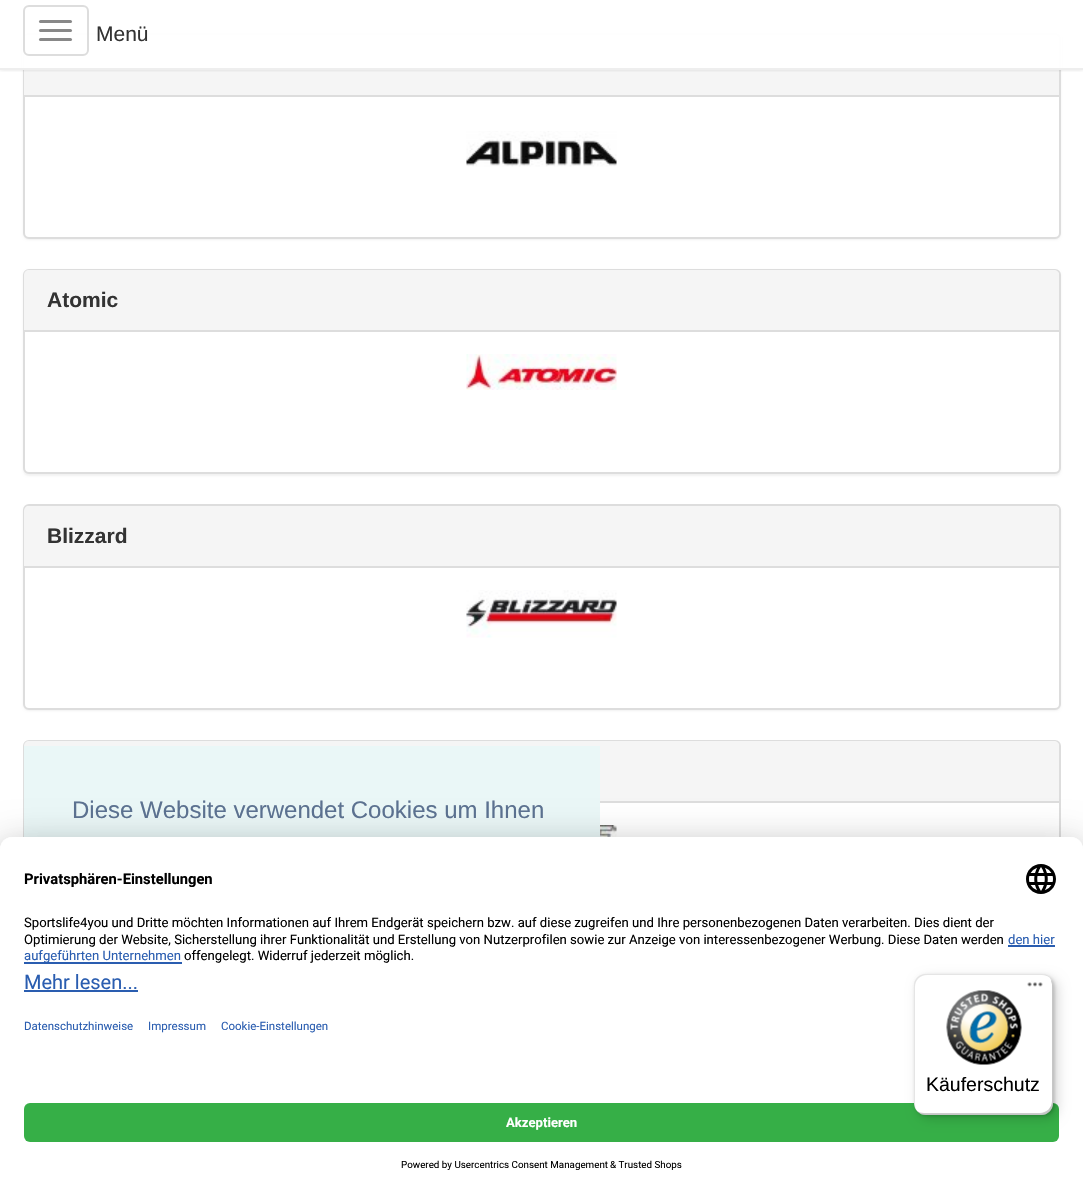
#include "include/core/SkBlurTypes.h"
#include "include/core/SkCanvas.h"
#include "include/core/SkData.h"
#include "include/core/SkFont.h"
#include "include/core/SkFontMgr.h"
#include "include/core/SkImage.h"
#include "include/core/SkMaskFilter.h"
#include "include/core/SkPaint.h"
#include "include/core/SkPathBuilder.h"
#include "include/core/SkTextBlob.h"
#include "include/effects/SkDashPathEffect.h"
#include "include/effects/SkGradientShader.h"
#include "include/utils/SkParsePath.h"

extern sk_sp<SkFontMgr> fontMgr;

static SkFont font(const char* family, int weight, float size, bool italic = false) {
    SkFontStyle style(weight, SkFontStyle::kNormal_Width,
        italic ? SkFontStyle::kItalic_Slant : SkFontStyle::kUpright_Slant);
    SkFont result(fontMgr->matchFamilyStyle(family, style), size);
    result.setSubpixel(true);
    return result;
}

static void drawLabel(SkCanvas* canvas, const char* s, float x, float y, const SkFont& font, SkColor color) {
    SkPaint ink(SkColor4f::FromColor(color));
    ink.setAntiAlias(true);
    canvas->drawString(s, x, y, font, ink);
}

static void fillRect(SkCanvas* canvas, float x, float y, float w, float h, SkColor color) {
    SkPaint ink(SkColor4f::FromColor(color));
    ink.setAntiAlias(true);
    canvas->drawRect(SkRect::MakeXYWH(x, y, w, h), ink);
}

static void fillRRect(SkCanvas* canvas, float x, float y, float w, float h, float radius, SkColor color) {
    SkPaint ink(SkColor4f::FromColor(color));
    ink.setAntiAlias(true);
    canvas->drawRoundRect(SkRect::MakeXYWH(x, y, w, h), radius, radius, ink);
}

static void drawPhoto(SkCanvas* canvas, const char* path, float x, float y, float w, float h) {
    auto image = SkImages::DeferredFromEncodedData(SkData::MakeFromFileName(path));
    canvas->drawImageRect(image, SkRect::MakeXYWH(x, y, w, h), SkSamplingOptions());
}

static SkPath parsePath(const char* data, bool evenOdd = false) {
    SkPath result = *SkParsePath::FromSVGString(data);
    if (evenOdd) result.setFillType(SkPathFillType::kEvenOdd);
    return result;
}

void draw(SkCanvas* canvas) {
    SkPaint paint;
    paint.setAntiAlias(true);
    canvas->clear(0xFFFFFFFF);
    fillRect(canvas, 23, 2, 1038, 2, 0xFFEEEEEE);
    paint.setColor(0x0D000000);
    paint.setMaskFilter(SkMaskFilter::MakeBlur(kNormal_SkBlurStyle, 1));
    canvas->drawRoundRect(SkRect::MakeXYWH(23, 35, 1038, 205), 6, 6, paint);
    paint.setMaskFilter(nullptr);
    paint.setColor(0xFFFFFFFF);
    canvas->drawRoundRect(SkRect::MakeXYWH(24, 34, 1036, 204), 5, 5, paint);
    paint.setStroke(true);
    paint.setStrokeWidth(2);
    paint.setColor(0xFFDDDDDD);
    canvas->drawRoundRect(SkRect::MakeXYWH(24, 34, 1036, 204), 5, 5, paint);
    paint.setStroke(false);
    paint.setColor(0xFFF5F5F5);
    canvas->drawPath(parsePath("M29 35H1054C1057 35 1059 37 1059 40V96H24V40C24 37 26 35 29 35Z"), paint);
    canvas->save();
    canvas->clipRect(SkRect::MakeXYWH(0, 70, 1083, 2));
    paint.setColor(0x33000000);
    paint.setMaskFilter(SkMaskFilter::MakeBlur(kNormal_SkBlurStyle, 2));
    canvas->drawRect(SkRect::MakeXYWH(0, 0, 1083, 69), paint);
    paint.setMaskFilter(nullptr);
    canvas->restore();
    fillRect(canvas, 22, 2, 1040, 66, 0xF2FFFFFF);
    fillRect(canvas, 0, 68, 1083, 2, 0xFFEEEEEE);
    paint.setStroke(true);
    paint.setColor(0xFFDDDDDD);
    canvas->drawRoundRect(SkRect::MakeXYWH(24, 6, 64, 49), 5, 5, paint);
    fillRRect(canvas, 39, 20, 33, 3, 1.5f, 0xFF888888);
    fillRRect(canvas, 39, 29, 33, 3, 1.5f, 0xFF888888);
    fillRRect(canvas, 39, 38, 33, 3, 1.5f, 0xFF888888);
    SkFont font1 = font("Liberation Sans", 400, 21);
    drawLabel(canvas, "Menü", 96, 41, font1, 0xFF333333);
    fillRect(canvas, 24, 95, 1035, 2, 0xFFDDDDDD);
    drawPhoto(canvas, "assets/img1.png", 466, 131, 151, 36);
    paint.setStroke(false);
    paint.setColor(0x0D000000);
    paint.setMaskFilter(SkMaskFilter::MakeBlur(kNormal_SkBlurStyle, 1));
    canvas->drawRoundRect(SkRect::MakeXYWH(23, 270, 1038, 206), 6, 6, paint);
    paint.setMaskFilter(nullptr);
    paint.setColor(0xFFFFFFFF);
    canvas->drawRoundRect(SkRect::MakeXYWH(24, 270, 1036, 203), 5, 5, paint);
    paint.setStroke(true);
    paint.setColor(0xFFDDDDDD);
    canvas->drawRoundRect(SkRect::MakeXYWH(24, 270, 1036, 203), 5, 5, paint);
    paint.setStroke(false);
    paint.setColor(0xFFF5F5F5);
    canvas->drawPath(parsePath("M29 270H1054C1057 270 1059 272 1059 275V332H24V275C24 272 26 270 29 270Z"), paint);
    fillRect(canvas, 24, 330, 1035, 2, 0xFFDDDDDD);
    SkFont font2 = font("Liberation Sans", 700, 21);
    drawLabel(canvas, "Atomic", 47, 307, font2, 0xFF333333);
    drawPhoto(canvas, "assets/img2.png", 466, 354, 151, 36);
    paint.setColor(0x0D000000);
    paint.setMaskFilter(SkMaskFilter::MakeBlur(kNormal_SkBlurStyle, 1));
    canvas->drawRoundRect(SkRect::MakeXYWH(23, 506, 1038, 205), 6, 6, paint);
    paint.setMaskFilter(nullptr);
    paint.setColor(0xFFFFFFFF);
    canvas->drawRoundRect(SkRect::MakeXYWH(24, 505, 1036, 204), 5, 5, paint);
    paint.setStroke(true);
    paint.setColor(0xFFDDDDDD);
    canvas->drawRoundRect(SkRect::MakeXYWH(24, 505, 1036, 204), 5, 5, paint);
    paint.setStroke(false);
    paint.setColor(0xFFF5F5F5);
    canvas->drawPath(parsePath("M29 506H1054C1057 506 1059 508 1059 511V567H24V511C24 508 26 506 29 506Z"), paint);
    fillRect(canvas, 24, 566, 1035, 2, 0xFFDDDDDD);
    drawLabel(canvas, "Blizzard", 47, 543, font2, 0xFF333333);
    drawPhoto(canvas, "assets/img3.png", 466, 590, 151, 48);
    paint.setStroke(true);
    paint.setColor(0xFFDDDDDD);
    canvas->drawRoundRect(SkRect::MakeXYWH(24, 741, 1036, 136), 5, 5, paint);
    paint.setStroke(false);
    paint.setColor(0xFFF5F5F5);
    canvas->drawPath(parsePath("M29 741H1054C1057 741 1059 743 1059 746V803H24V746C24 743 26 741 29 741Z"), paint);
    fillRect(canvas, 600, 801, 459, 2, 0xFFDDDDDD);
    drawPhoto(canvas, "assets/img4.png", 600, 825, 17, 12);
    fillRect(canvas, 24, 746, 576, 91, 0xFFEAF7F7);
    SkFont font3 = font("Liberation Sans", 400, 24);
    drawLabel(canvas, "Diese Website verwendet Cookies um Ihnen", 72, 818, font3, 0xFF5C7291);
    paint.setColor(0x4D000000);
    paint.setMaskFilter(SkMaskFilter::MakeBlur(kNormal_SkBlurStyle, 21));
    canvas->drawRoundRect(SkRect::MakeXYWH(0, 867, 1083, 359), 12, 12, paint);
    paint.setMaskFilter(nullptr);
    paint.setColor(0x38000000);
    paint.setMaskFilter(SkMaskFilter::MakeBlur(kNormal_SkBlurStyle, 19.5f));
    canvas->drawRoundRect(SkRect::MakeXYWH(0, 845, 1083, 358), 12, 12, paint);
    paint.setMaskFilter(nullptr);
    paint.setColor(0xFFFFFFFF);
    canvas->drawPath(parsePath("M12 837H1071C1077.5 837 1083 842.5 1083 849V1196H0V849C0 842.5 5.5 837 12 837Z"), paint);
    canvas->drawPath(parsePath("M12 837H1071C1077.5 837 1083 842.5 1083 849V1085H0V849C0 842.5 5.5 837 12 837Z"), paint);
    SkFont font4 = font("Roboto", 700, 14.75f);
    drawLabel(canvas, "Privatsphären-Einstellungen", 24, 884, font4, 0xFF000000);
    drawPhoto(canvas, "assets/img5.png", 1026, 864, 30, 30);
    SkFont font5 = font("Roboto", 400, 13.12f);
    drawLabel(canvas, "Sportslife4you und Dritte möchten Informationen auf Ihrem Endgerät speichern bzw. auf diese zugreifen und Ihre personenbezogenen Daten verarbeiten. Dies dient der", 24, 927, font5, 0xFF000000);
    drawLabel(canvas, "Optimierung der Website, Sicherstellung ihrer Funktionalität und Erstellung von Nutzerprofilen sowie zur Anzeige von interessenbezogener Werbung. Diese Daten werden", 24, 944, font5, 0xFF000000);
    drawLabel(canvas, "den hier", 1008, 944, font5, 0xFF2A5DB0);
    fillRect(canvas, 1008, 945, 47, 2, 0xFF2A5DB0);
    fillRect(canvas, 24, 962, 158, 2, 0xFF2A5DB0);
    drawLabel(canvas, "aufgeführten Unternehmen", 24, 960, font5, 0xFF2A5DB0);
    drawLabel(canvas, "offengelegt. Widerruf jederzeit möglich.", 184, 960, font5, 0xFF000000);
    SkFont font6 = font("Roboto", 400, 20);
    drawLabel(canvas, "Mehr lesen...", 24, 989, font6, 0xFF2A5DB0);
    fillRect(canvas, 24, 990, 114, 2, 0xFF2A5DB0);
    SkFont font7 = font("Roboto", 400, 11.5f);
    drawLabel(canvas, "Datenschutzhinweise", 24, 1030, font7, 0xFF2A5DB0);
    drawLabel(canvas, "Impressum", 148, 1030, font7, 0xFF2A5DB0);
    drawLabel(canvas, "Cookie-Einstellungen", 221, 1030, font7, 0xFF2A5DB0);
    fillRRect(canvas, 24, 1103, 1035, 39, 6, 0xFF36AF47);
    SkFont font8 = font("Roboto", 700, 13.12f);
    drawLabel(canvas, "Akzeptieren", 506, 1127, font8, 0xFFFFFFFF);
    SkFont font9 = font("Roboto", 400, 9.8f);
    drawLabel(canvas, "Powered by Usercentrics Consent Management", 401, 1168, font9, 0xFF000000);
    drawLabel(canvas, "& Trusted Shops", 610, 1168, font9, 0xFF000000);
    paint.setColor(0x26000000);
    paint.setMaskFilter(SkMaskFilter::MakeBlur(kNormal_SkBlurStyle, 6));
    canvas->drawRoundRect(SkRect::MakeXYWH(918, 978, 140, 141), 12, 12, paint);
    paint.setMaskFilter(nullptr);
    paint.setMaskFilter(SkMaskFilter::MakeBlur(kNormal_SkBlurStyle, 1.5f));
    canvas->drawRoundRect(SkRect::MakeXYWH(915, 975, 140, 141), 12, 12, paint);
    paint.setMaskFilter(nullptr);
    fillRRect(canvas, 914, 974, 139, 141, 12, 0xFFFFFFFF);
    paint.setColor(0x1A000000);
    canvas->drawPath(parsePath("M927 975H1042C1045 975 1047 976 1049 977C1047 975 1044 974 1041 974H926C919 974 914 979 914 986V1103C914 1106 915 1109 917 1111C916 1109 915 1107 915 1104V987C915 980 920 975 927 975Z"), paint);
    paint.setColor(0x33000000);
    canvas->drawPath(parsePath("M917 1111C919 1113 922 1115 926 1115H1041C1048 1115 1053 1110 1053 1103V986C1053 984 1052 981 1051 980L1052 984V1101C1052 1108 1046 1113 1040 1113H924C921 1113 919 1112 917 1111Z"), paint);
    paint.setColor(0x33323232);
    canvas->drawPath(parsePath("M917 1111C919 1113 922 1115 926 1115H1041C1048 1115 1053 1110 1053 1103V986C1053 983 1052 980 1050 978C1051 980 1052 982 1052 985V1102C1052 1108 1047 1114 1040 1114H925C922 1114 919 1113 917 1111Z"), paint);
    paint.setColor(0x4DFFFFFF);
    canvas->drawPath(parsePath("M917 1111C919 1113 922 1115 926 1115H1041C1048 1115 1053 1110 1053 1103V986C1053 983 1052 980 1050 978C1051 980 1052 982 1052 985V1102C1052 1108 1047 1114 1040 1114H925C922 1114 919 1113 917 1111Z"), paint);
    drawPhoto(canvas, "assets/img6.png", 1027, 982, 16, 5);
    drawPhoto(canvas, "assets/img7.png", 946, 990, 76, 75);
    SkFont font10 = font("Liberation Sans", 400, 19.5f);
    drawLabel(canvas, "Käuferschutz", 926, 1091, font10, 0xFF000000);
}
